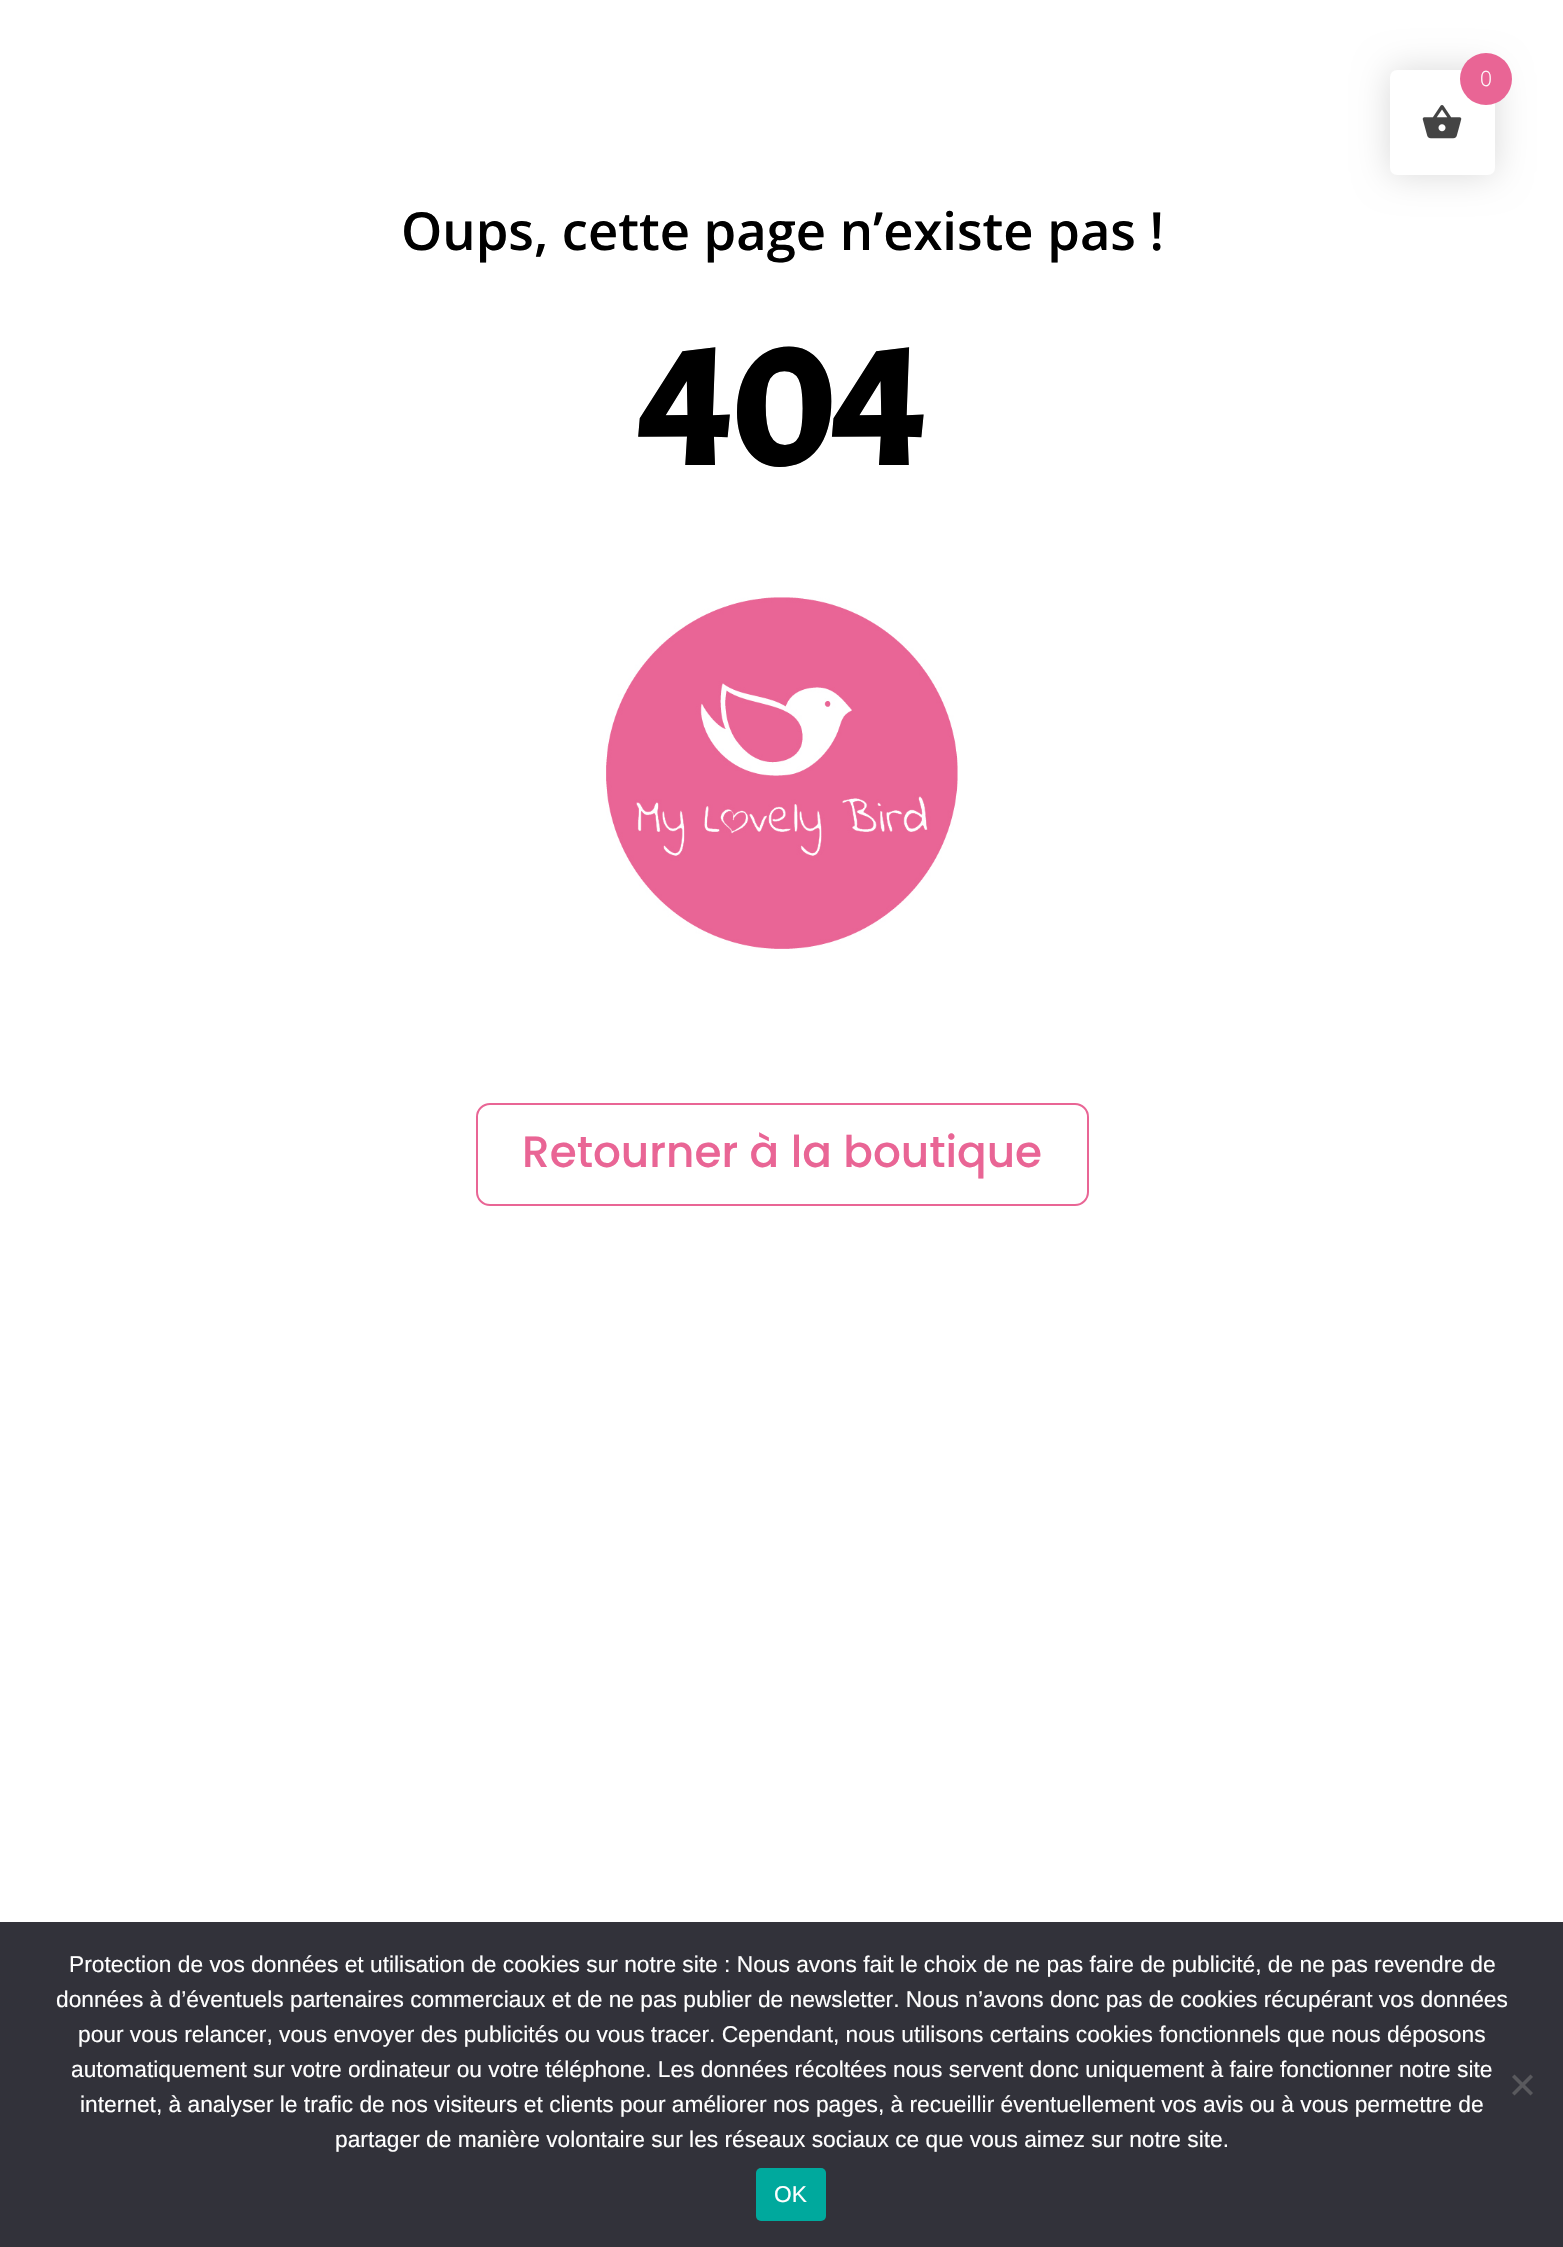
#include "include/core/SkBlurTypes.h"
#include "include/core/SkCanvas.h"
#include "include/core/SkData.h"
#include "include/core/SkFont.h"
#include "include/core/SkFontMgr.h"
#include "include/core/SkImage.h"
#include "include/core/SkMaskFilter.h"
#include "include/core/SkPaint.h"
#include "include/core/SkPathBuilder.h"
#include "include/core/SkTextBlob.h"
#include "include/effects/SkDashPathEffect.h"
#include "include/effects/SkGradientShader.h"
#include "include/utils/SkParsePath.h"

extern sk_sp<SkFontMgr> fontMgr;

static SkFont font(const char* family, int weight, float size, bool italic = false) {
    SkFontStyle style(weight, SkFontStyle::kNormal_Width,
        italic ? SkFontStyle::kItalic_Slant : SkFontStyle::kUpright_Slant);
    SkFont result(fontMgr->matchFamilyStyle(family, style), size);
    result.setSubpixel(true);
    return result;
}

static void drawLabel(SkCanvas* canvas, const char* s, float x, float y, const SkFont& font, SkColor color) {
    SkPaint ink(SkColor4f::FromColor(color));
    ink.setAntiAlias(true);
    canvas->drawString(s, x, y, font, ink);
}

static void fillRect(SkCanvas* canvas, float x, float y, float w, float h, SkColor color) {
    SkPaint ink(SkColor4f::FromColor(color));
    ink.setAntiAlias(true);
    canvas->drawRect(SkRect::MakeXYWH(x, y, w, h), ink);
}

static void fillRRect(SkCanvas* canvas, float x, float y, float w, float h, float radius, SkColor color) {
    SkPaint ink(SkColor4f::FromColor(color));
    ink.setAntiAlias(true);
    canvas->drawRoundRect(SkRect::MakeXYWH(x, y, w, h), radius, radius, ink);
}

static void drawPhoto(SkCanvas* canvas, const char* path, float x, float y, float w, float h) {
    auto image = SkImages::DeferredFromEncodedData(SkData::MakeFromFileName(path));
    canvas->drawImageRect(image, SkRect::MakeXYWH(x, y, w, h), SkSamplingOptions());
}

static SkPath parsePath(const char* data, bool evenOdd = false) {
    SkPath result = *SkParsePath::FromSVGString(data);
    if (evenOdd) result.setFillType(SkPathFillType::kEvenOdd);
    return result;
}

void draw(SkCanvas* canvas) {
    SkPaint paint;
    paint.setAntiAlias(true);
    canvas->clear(0xFFFFFFFF);
    paint.setColor(0x26000000);
    paint.setMaskFilter(SkMaskFilter::MakeBlur(kNormal_SkBlurStyle, 17.5f));
    canvas->drawRoundRect(SkRect::MakeXYWH(1390, 70, 105, 105), 7, 7, paint);
    paint.setMaskFilter(nullptr);
    fillRRect(canvas, 1390, 70, 105, 105, 7, 0xFFFFFFFF);
    paint.setColor(0xFFE96595);
    canvas->drawCircle(1486, 79, 26, paint);
    SkFont font1 = font("Open Sans", 300, 21);
    drawLabel(canvas, "0", 1480, 86, font1, 0xFFFFFFFF);
    drawPhoto(canvas, "assets/img1.png", 1422, 105, 40, 34);
    SkFont font2 = font("Open Sans", 600, 52.5f);
    drawLabel(canvas, "Oups, cette page n’existe pas !", 401, 250, font2, 0xFF000000);
    SkFont font3 = font("Acme", 700, 175);
    drawLabel(canvas, "404", 638, 465, font3, 0xFF000000);
    drawPhoto(canvas, "assets/img2.png", 606, 597, 352, 352);
    paint.setStroke(true);
    paint.setStrokeWidth(2);
    canvas->drawRoundRect(SkRect::MakeXYWH(477, 1104, 611, 101), 13, 13, paint);
    SkFont font4 = font("Poppins", 500, 43.75f);
    drawLabel(canvas, "Retourner à la boutique", 522, 1167, font4, 0xFFE96595);
    fillRect(canvas, 0, 1922, 1563, 325, 0xFF32323A);
    SkFont font5 = font("Liberation Sans", 400, 22.75f);
    drawLabel(canvas, "Protection de vos données et utilisation de cookies sur notre site : Nous avons fait le choix de ne pas faire de publicité, de ne pas revendre de", 69, 1972, font5, 0xFFFFFFFF);
    drawLabel(canvas, "données à d’éventuels partenaires commerciaux et de ne pas publier de newsletter. Nous n’avons donc pas de cookies récupérant vos données", 56, 2007, font5, 0xFFFFFFFF);
    drawLabel(canvas, "pour vous relancer, vous envoyer des publicités ou vous tracer. Cependant, nous utilisons certains cookies fonctionnels que nous déposons", 78, 2042, font5, 0xFFFFFFFF);
    drawLabel(canvas, "automatiquement sur votre ordinateur ou votre téléphone. Les données récoltées nous servent donc uniquement à faire fonctionner notre site", 71, 2077, font5, 0xFFFFFFFF);
    drawLabel(canvas, "internet, à analyser le trafic de nos visiteurs et clients pour améliorer nos pages, à recueillir éventuellement vos avis ou à vous permettre de", 80, 2112, font5, 0xFFFFFFFF);
    drawLabel(canvas, "partager de manière volontaire sur les réseaux sociaux ce que vous aimez sur notre site.", 335, 2147, font5, 0xFFFFFFFF);
    paint.setStroke(false);
    paint.setColor(0xFF59595D);
    canvas->drawPath(parsePath("M1530.5 2074.5L1533 2077L1514.5 2095.5L1512 2093Z"), paint);
    canvas->drawPath(parsePath("M1512 2077L1514.5 2074.5L1533 2093L1530.5 2095.5Z"), paint);
    fillRRect(canvas, 756, 2168, 70, 53, 5, 0xFF00A99D);
    drawLabel(canvas, "OK", 774, 2202, font5, 0xFFFFFFFF);
}
